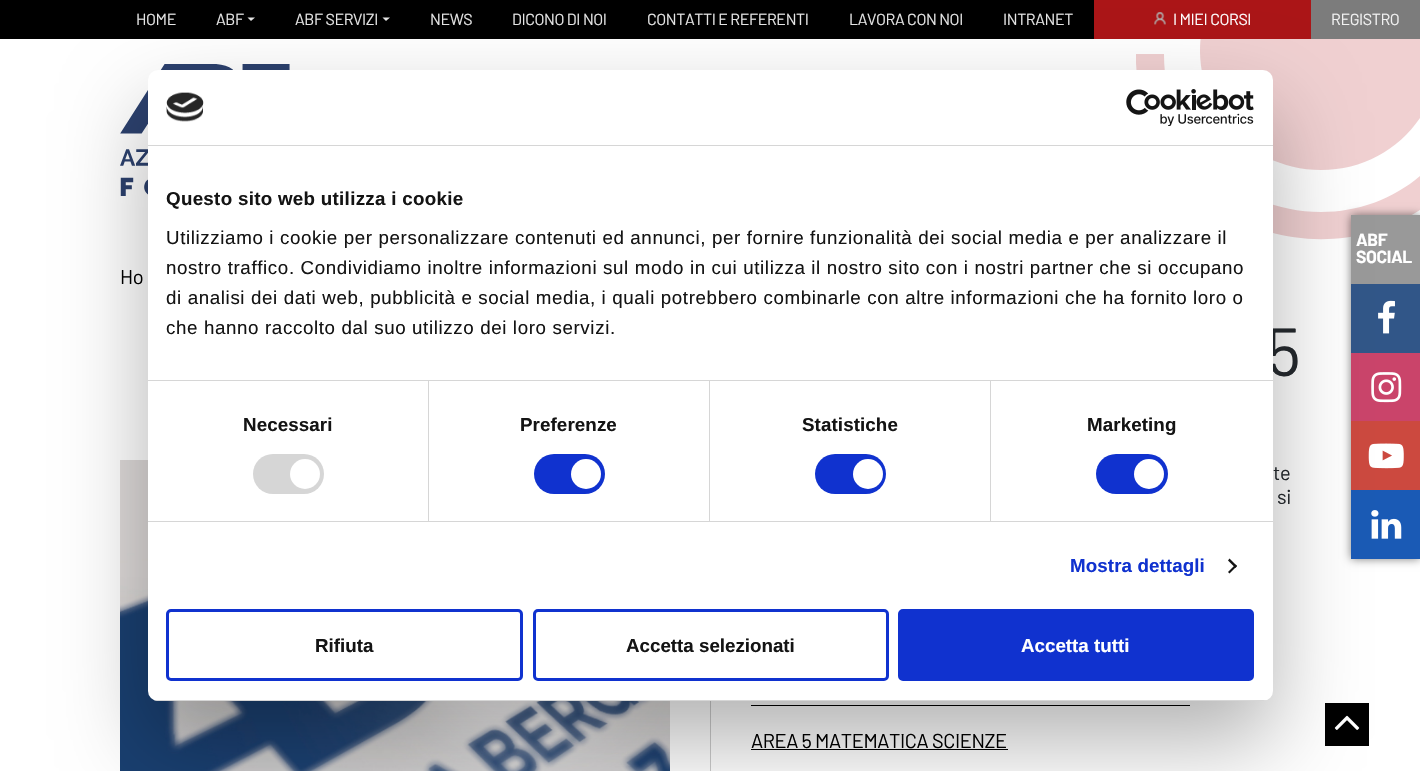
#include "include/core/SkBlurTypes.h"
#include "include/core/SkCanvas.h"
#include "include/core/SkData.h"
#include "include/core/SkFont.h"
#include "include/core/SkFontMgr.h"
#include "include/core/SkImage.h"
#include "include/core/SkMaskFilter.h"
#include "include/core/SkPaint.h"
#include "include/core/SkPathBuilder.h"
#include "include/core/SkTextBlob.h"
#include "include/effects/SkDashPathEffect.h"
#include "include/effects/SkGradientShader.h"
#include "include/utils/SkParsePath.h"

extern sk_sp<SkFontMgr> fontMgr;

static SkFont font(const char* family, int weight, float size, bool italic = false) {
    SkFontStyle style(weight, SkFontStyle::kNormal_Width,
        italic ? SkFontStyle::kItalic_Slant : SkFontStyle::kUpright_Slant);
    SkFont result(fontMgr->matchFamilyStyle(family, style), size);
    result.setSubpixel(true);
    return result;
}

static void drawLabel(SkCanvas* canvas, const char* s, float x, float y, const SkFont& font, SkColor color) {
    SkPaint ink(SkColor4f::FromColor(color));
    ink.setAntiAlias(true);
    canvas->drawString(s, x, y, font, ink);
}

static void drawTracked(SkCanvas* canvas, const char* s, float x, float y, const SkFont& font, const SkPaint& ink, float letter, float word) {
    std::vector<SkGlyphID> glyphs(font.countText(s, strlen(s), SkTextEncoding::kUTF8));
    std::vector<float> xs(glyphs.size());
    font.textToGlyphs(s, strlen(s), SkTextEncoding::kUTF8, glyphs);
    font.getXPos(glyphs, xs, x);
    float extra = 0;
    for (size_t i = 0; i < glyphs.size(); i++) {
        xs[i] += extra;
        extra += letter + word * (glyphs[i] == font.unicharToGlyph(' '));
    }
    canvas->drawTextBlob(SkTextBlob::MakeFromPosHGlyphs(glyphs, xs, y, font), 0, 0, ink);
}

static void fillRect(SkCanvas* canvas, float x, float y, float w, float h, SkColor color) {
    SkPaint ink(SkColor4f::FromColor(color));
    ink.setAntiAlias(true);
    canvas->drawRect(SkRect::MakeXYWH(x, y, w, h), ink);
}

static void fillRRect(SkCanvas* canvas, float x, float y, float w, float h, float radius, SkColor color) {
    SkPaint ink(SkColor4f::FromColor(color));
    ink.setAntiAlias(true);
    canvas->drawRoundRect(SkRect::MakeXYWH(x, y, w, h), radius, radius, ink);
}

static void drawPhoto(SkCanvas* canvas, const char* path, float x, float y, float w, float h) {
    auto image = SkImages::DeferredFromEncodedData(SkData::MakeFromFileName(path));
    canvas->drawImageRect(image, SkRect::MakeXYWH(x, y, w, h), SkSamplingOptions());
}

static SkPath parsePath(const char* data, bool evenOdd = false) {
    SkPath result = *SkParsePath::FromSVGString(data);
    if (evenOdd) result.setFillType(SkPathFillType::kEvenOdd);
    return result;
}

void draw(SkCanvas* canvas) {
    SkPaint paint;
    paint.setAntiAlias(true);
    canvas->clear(0xFFFFFFFF);
    fillRect(canvas, 0, 0, 1094, 39, 0xFF000000);
    SkFont font1 = font("Barlow", 400, 16);
    paint.setColor(0xFFE6E6E6);
    drawTracked(canvas, "HOME", 136, 25, font1, paint, -0.4f, 0);
    drawTracked(canvas, "ABF", 216, 25, font1, paint, -0.4f, 0);
    canvas->drawPath(parsePath("M247.5 17.5H255L251 21Z"), paint);
    drawTracked(canvas, "ABF SERVIZI", 295, 25, font1, paint, -0.4f, 0);
    canvas->drawPath(parsePath("M382.5 17.5H390L386 21Z"), paint);
    drawTracked(canvas, "NEWS", 430, 25, font1, paint, -0.4f, 0);
    drawTracked(canvas, "DICONO DI NOI", 512, 25, font1, paint, -0.4f, 0);
    drawTracked(canvas, "CONTATTI E REFERENTI", 647, 25, font1, paint, -0.4f, 0);
    drawTracked(canvas, "LAVORA CON NOI", 849, 25, font1, paint, -0.4f, 0);
    drawTracked(canvas, "INTRANET", 1003, 25, font1, paint, -0.4f, 0);
    paint.setColor(0xFFF0D0D1);
    canvas->drawPath(parsePath("M1321 170C1362 170 1398 150 1420 118V24H1203C1186 98 1243 170 1321 170Z"), paint);
    fillRect(canvas, 1094, 0, 217, 39, 0xFFAB1517);
    drawPhoto(canvas, "assets/img1.png", 1154, 12, 12, 13);
    paint.setColor(0xFFFFFFFF);
    drawTracked(canvas, "I MIEI CORSI", 1173, 25, font1, paint, -0.4f, 0);
    fillRect(canvas, 1311, 0, 109, 39, 0xFF7C7C7C);
    paint.setColor(0xFFF2F2F2);
    drawTracked(canvas, "REGISTRO", 1331, 25, font1, paint, -0.4f, 0);
    drawPhoto(canvas, "assets/img2.png", 120, 64, 170, 132);
    canvas->save();
    canvas->clipRect(SkRect::MakeXYWH(1136, 24, 284, 216));
    paint.setColor(0xFFF0D0D1);
    canvas->drawPath(parsePath("M1321 212C1234 212 1164 142 1164 55V54H1136C1135 76 1142 106 1151 127C1195 233 1326 271 1420 210V176C1393 199 1358 212 1321 212Z"), paint);
    canvas->restore();
    paint.setColor(0x80000000);
    paint.setMaskFilter(SkMaskFilter::MakeBlur(kNormal_SkBlurStyle, 4.5f));
    canvas->drawRect(SkRect::MakeXYWH(1351, 215, 69, 344), paint);
    paint.setMaskFilter(nullptr);
    fillRect(canvas, 1351, 215, 69, 69, 0xFF999999);
    fillRect(canvas, 1351, 284, 69, 69, 0xFF315688);
    drawPhoto(canvas, "assets/img5.png", 1378, 300, 17, 34);
    fillRect(canvas, 1351, 353, 69, 68, 0xFFCA446A);
    drawPhoto(canvas, "assets/img6.png", 1371, 372, 31, 31);
    fillRect(canvas, 1351, 421, 69, 69, 0xFFCC493F);
    drawPhoto(canvas, "assets/img7.png", 1368, 443, 36, 26);
    fillRect(canvas, 1351, 490, 69, 69, 0xFF1A5AB5);
    drawPhoto(canvas, "assets/img8.png", 1371, 510, 31, 29);
    drawPhoto(canvas, "assets/img9.png", 120, 460, 550, 311);
    fillRect(canvas, 710, 701, 1, 70, 0xFFCCCCCC);
    fillRect(canvas, 751, 705, 439, 1, 0xFF000000);
    fillRect(canvas, 751, 749, 257, 1, 0xFF000000);
    fillRect(canvas, 1325, 703, 44, 43, 0xFF000000);
    drawPhoto(canvas, "assets/img10.png", 1334, 715, 26, 15);
    paint.setColor(0x4D000000);
    paint.setMaskFilter(SkMaskFilter::MakeBlur(kNormal_SkBlurStyle, 42.5f));
    canvas->drawRoundRect(SkRect::MakeXYWH(148, 110, 1125, 631), 10, 10, paint);
    paint.setMaskFilter(nullptr);
    SkFont font2 = font("Barlow", 400, 68);
    paint.setColor(0xFF212529);
    drawTracked(canvas, "5", 1266, 376, font2, paint, -0.4f, 0);
    fillRRect(canvas, 148, 70, 1125, 631, 10, 0xFFFFFFFF);
    fillRect(canvas, 148, 145, 1125, 1, 0xFFD6D6D6);
    drawPhoto(canvas, "assets/img3.png", 166, 92, 38, 30);
    drawPhoto(canvas, "assets/img4.png", 1126, 89, 128, 37);
    fillRect(canvas, 148, 380, 1125, 1, 0xFFD6D6D6);
    SkFont font3 = font("Liberation Sans", 700, 18.75f);
    paint.setColor(0xFF141414);
    drawTracked(canvas, "Questo sito web utilizza i cookie", 166, 205, font3, paint, 0.3f, 0);
    SkFont font4 = font("Liberation Sans", 400, 18.75f);
    drawTracked(canvas, "Utilizziamo i cookie per personalizzare contenuti ed annunci, per fornire funzionalità dei social media e per analizzare il", 166, 244, font4, paint, 0.62f, 0);
    drawTracked(canvas, "nostro traffico. Condividiamo inoltre informazioni sul modo in cui utilizza il nostro sito con i nostri partner che si occupano", 166, 274, font4, paint, 0.62f, 0);
    drawTracked(canvas, "di analisi dei dati web, pubblicità e social media, i quali potrebbero combinarle con altre informazioni che ha fornito loro o", 166, 304, font4, paint, 0.62f, 0);
    drawTracked(canvas, "che hanno raccolto dal suo utilizzo dei loro servizi.", 166, 334, font4, paint, 0.62f, 0);
    fillRect(canvas, 148, 521, 1125, 1, 0xFFD6D6D6);
    fillRect(canvas, 428, 381, 1, 140, 0xFFD6D6D6);
    drawTracked(canvas, "Necessari", 243, 431, font3, paint, 0.1f, 0);
    fillRRect(canvas, 253, 454, 71, 40, 20, 0xFFD6D6D6);
    paint.setColor(0xFFFFFFFF);
    canvas->drawCircle(305, 474, 15, paint);
    fillRect(canvas, 709, 381, 1, 140, 0xFFD6D6D6);
    paint.setColor(0xFF141414);
    drawTracked(canvas, "Preferenze", 520, 431, font3, paint, 0.1f, 0);
    fillRRect(canvas, 534, 454, 71, 40, 20, 0xFF1032CF);
    paint.setColor(0xFFFFFFFF);
    canvas->drawCircle(586, 474, 15, paint);
    fillRect(canvas, 990, 381, 1, 140, 0xFFD6D6D6);
    paint.setColor(0xFF141414);
    drawTracked(canvas, "Statistiche", 802, 431, font3, paint, 0.1f, 0);
    fillRRect(canvas, 815, 454, 71, 40, 20, 0xFF1032CF);
    paint.setColor(0xFFFFFFFF);
    canvas->drawCircle(868, 474, 15, paint);
    paint.setColor(0xFF141414);
    drawTracked(canvas, "Marketing", 1087, 431, font3, paint, 0.1f, 0);
    fillRRect(canvas, 1096, 454, 72, 40, 20, 0xFF1032CF);
    paint.setColor(0xFFFFFFFF);
    canvas->drawCircle(1149, 474, 15, paint);
    paint.setColor(0xFF1032CF);
    drawTracked(canvas, "Mostra dettagli", 1070, 572, font3, paint, 0.1f, 0);
    paint.setColor(0xFF141414);
    canvas->drawPath(parsePath("M1229.5 558.5L1237 566L1235.5 568L1228 560.5Z"), paint);
    canvas->drawPath(parsePath("M1235.5 564.5L1237 566L1229.5 573.5L1228 572Z"), paint);
    canvas->save();
    canvas->clipPath(parsePath("M158 70H1263C1268.5 70 1273 74.5 1273 80V691C1273 696.5 1268.5 701 1263 701H158C152.5 701 148 696.5 148 691V80C148 74.5 152.5 70 158 70Z"), true);
    fillRect(canvas, 148, 700, 1125, 1, 0xFFD6D6D6);
    canvas->restore();
    paint.setStroke(true);
    paint.setStrokeWidth(3);
    paint.setColor(0xFF1032CF);
    canvas->drawRoundRect(SkRect::MakeXYWH(167.5f, 610.5f, 354, 69), 3.5f, 3.5f, paint);
    drawLabel(canvas, "Rifiuta", 315, 652, font3, 0xFF141414);
    canvas->drawRoundRect(SkRect::MakeXYWH(534.5f, 610.5f, 353, 69), 3.5f, 3.5f, paint);
    drawLabel(canvas, "Accetta selezionati", 626, 652, font3, 0xFF141414);
    paint.setStroke(false);
    canvas->drawRoundRect(SkRect::MakeXYWH(899.5f, 610.5f, 353, 69), 3.5f, 3.5f, paint);
    paint.setStroke(true);
    canvas->drawRoundRect(SkRect::MakeXYWH(899.5f, 610.5f, 353, 69), 3.5f, 3.5f, paint);
    drawLabel(canvas, "Accetta tutti", 1021, 652, font3, 0xFFFFFFFF);
    SkFont font5 = font("Barlow", 700, 17.5f);
    paint.setStroke(false);
    paint.setColor(0xFFFFFFFF);
    drawTracked(canvas, "ABF", 1356, 246, font5, paint, -0.4f, 0);
    drawTracked(canvas, "SOCIAL", 1356, 263, font5, paint, -0.4f, 0);
    SkFont font6 = font("Barlow", 400, 20);
    paint.setColor(0xFF000000);
    drawTracked(canvas, "Ho", 120, 284, font6, paint, -0.4f, 0);
    paint.setColor(0xFF212529);
    drawTracked(canvas, "te", 1273, 480, font6, paint, -0.4f, 0);
    drawTracked(canvas, "si", 1277, 504, font6, paint, -0.4f, 0);
    paint.setColor(0xFF000000);
    drawTracked(canvas, "AREA 5 MATEMATICA SCIENZE", 751, 748, font6, paint, -0.4f, 0);
}
